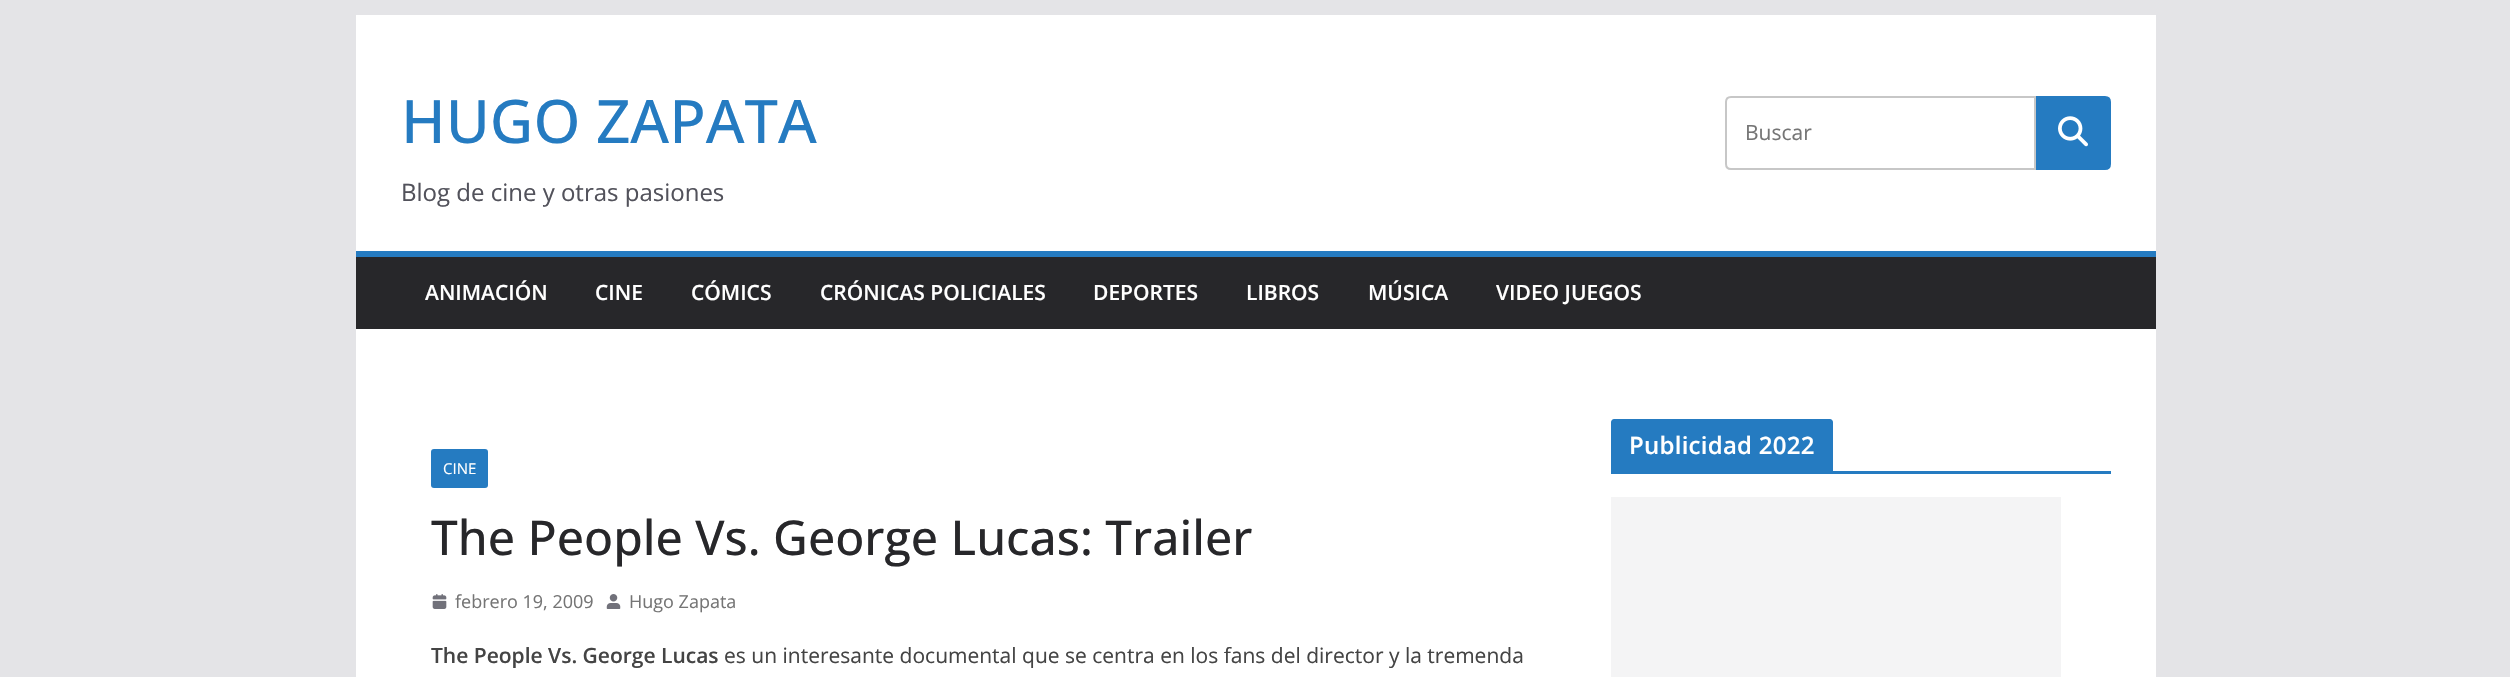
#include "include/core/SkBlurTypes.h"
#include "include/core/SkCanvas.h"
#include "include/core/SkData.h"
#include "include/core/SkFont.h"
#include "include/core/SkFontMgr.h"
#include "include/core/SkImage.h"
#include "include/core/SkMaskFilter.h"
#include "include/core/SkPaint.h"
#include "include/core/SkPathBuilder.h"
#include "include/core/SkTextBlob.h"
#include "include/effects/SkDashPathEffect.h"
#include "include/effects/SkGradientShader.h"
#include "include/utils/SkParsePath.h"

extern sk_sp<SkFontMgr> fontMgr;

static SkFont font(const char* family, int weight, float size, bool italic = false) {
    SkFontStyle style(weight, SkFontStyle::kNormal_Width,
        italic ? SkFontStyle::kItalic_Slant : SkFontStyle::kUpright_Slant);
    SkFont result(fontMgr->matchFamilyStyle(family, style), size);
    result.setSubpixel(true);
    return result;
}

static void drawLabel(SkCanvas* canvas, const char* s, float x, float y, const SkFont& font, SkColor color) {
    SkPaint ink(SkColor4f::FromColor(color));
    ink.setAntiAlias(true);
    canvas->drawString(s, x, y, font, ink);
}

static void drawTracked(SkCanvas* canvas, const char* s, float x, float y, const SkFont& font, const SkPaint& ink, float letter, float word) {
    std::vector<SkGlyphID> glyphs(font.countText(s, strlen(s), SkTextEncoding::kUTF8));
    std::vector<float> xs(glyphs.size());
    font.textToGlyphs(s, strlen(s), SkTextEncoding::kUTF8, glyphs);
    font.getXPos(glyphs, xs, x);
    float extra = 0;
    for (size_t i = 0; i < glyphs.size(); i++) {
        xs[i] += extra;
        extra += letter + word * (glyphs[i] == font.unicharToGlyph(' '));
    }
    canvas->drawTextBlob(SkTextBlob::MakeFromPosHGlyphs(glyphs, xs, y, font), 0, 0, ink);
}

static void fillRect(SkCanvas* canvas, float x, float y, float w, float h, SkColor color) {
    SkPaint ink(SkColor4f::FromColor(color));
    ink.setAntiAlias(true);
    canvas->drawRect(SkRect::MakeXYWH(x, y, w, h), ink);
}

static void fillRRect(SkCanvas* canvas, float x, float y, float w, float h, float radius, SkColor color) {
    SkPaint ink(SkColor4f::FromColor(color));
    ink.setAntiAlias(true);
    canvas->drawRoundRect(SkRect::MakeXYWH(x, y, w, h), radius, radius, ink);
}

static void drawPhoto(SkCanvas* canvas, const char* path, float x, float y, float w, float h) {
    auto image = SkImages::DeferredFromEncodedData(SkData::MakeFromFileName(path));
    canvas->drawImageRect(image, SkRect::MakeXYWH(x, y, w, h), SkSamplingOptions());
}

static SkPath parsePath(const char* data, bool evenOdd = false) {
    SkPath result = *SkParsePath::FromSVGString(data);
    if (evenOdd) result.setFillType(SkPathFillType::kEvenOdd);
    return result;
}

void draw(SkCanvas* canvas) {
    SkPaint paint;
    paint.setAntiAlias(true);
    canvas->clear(0xFFE4E4E7);
    fillRect(canvas, 356, 15, 1800, 236, 0xFFFFFFFF);
    SkFont font1 = font("Open Sans", 500, 60);
    drawLabel(canvas, "HUGO ZAPATA", 401, 143, font1, 0xFF257BC1);
    SkFont font2 = font("Open Sans", 400, 24);
    drawLabel(canvas, "Blog de cine y otras pasiones", 401, 201, font2, 0xFF52525B);
    paint.setStroke(true);
    paint.setStrokeWidth(2);
    paint.setColor(0xFFC7C7C7);
    canvas->drawPath(parsePath("M1731 97H2035V169H1731C1728 169 1726 167 1726 164V102C1726 99 1728 97 1731 97Z"), paint);
    SkFont font3 = font("Open Sans", 400, 21);
    drawLabel(canvas, "Buscar", 1745, 140, font3, 0xFF757575);
    paint.setStroke(false);
    paint.setColor(0xFF257BC1);
    canvas->drawPath(parsePath("M2037 97H2105C2108 97 2110 99 2110 102V164C2110 167 2108 169 2105 169H2037Z"), paint);
    paint.setStroke(true);
    canvas->drawPath(parsePath("M2037 97H2105C2108 97 2110 99 2110 102V164C2110 167 2108 169 2105 169H2037Z"), paint);
    drawPhoto(canvas, "assets/img1.png", 2058, 116, 30, 31);
    fillRect(canvas, 356, 257, 1800, 72, 0xFF27272A);
    fillRect(canvas, 356, 251, 1800, 6, 0xFF257BC1);
    SkFont font4 = font("Open Sans", 600, 21);
    drawLabel(canvas, "ANIMACIÓN", 425, 300, font4, 0xFFFFFFFF);
    drawLabel(canvas, "CINE", 595, 300, font4, 0xFFFFFFFF);
    drawLabel(canvas, "CÓMICS", 691, 300, font4, 0xFFFFFFFF);
    drawLabel(canvas, "CRÓNICAS POLICIALES", 820, 300, font4, 0xFFFFFFFF);
    drawLabel(canvas, "DEPORTES", 1093, 300, font4, 0xFFFFFFFF);
    drawLabel(canvas, "LIBROS", 1246, 300, font4, 0xFFFFFFFF);
    drawLabel(canvas, "MÚSICA", 1368, 300, font4, 0xFFFFFFFF);
    drawLabel(canvas, "VIDEO JUEGOS", 1496, 300, font4, 0xFFFFFFFF);
    fillRect(canvas, 356, 329, 1800, 348, 0xFFFFFFFF);
    fillRect(canvas, 1611, 471, 500, 3, 0xFF257BC1);
    paint.setStroke(false);
    canvas->drawPath(parsePath("M1614 419H1830C1831.5 419 1833 420.5 1833 422V471H1611V422C1611 420.5 1612.5 419 1614 419Z"), paint);
    SkFont font5 = font("Open Sans", 600, 24);
    paint.setColor(0xFFFFFFFF);
    drawTracked(canvas, "Publicidad 2022", 1629, 454, font5, paint, 0.25f, 0);
    fillRect(canvas, 1611, 497, 450, 180, 0xFFF4F4F5);
    fillRRect(canvas, 431, 449, 57, 39, 3, 0xFF257BC1);
    SkFont font6 = font("Open Sans", 400, 15);
    drawLabel(canvas, "CINE", 443, 474, font6, 0xFFFFFFFF);
    SkFont font7 = font("Open Sans", 500, 48);
    drawLabel(canvas, "The People Vs. George Lucas: Trailer", 431, 555, font7, 0xFF27272A);
    drawPhoto(canvas, "assets/img2.png", 432, 594, 15, 15);
    SkFont font8 = font("Open Sans", 400, 18);
    drawLabel(canvas, "febrero 19, 2009", 455, 608, font8, 0xFF757575);
    drawPhoto(canvas, "assets/img3.png", 606, 594, 15, 15);
    drawLabel(canvas, "Hugo Zapata", 629, 608, font8, 0xFF757575);
    drawLabel(canvas, "The People Vs. George Lucas", 431, 663, font4, 0xFF444444);
    drawLabel(canvas, "es un interesante documental que se centra en los fans del director y la tremenda", 724, 663, font3, 0xFF444444);
}
